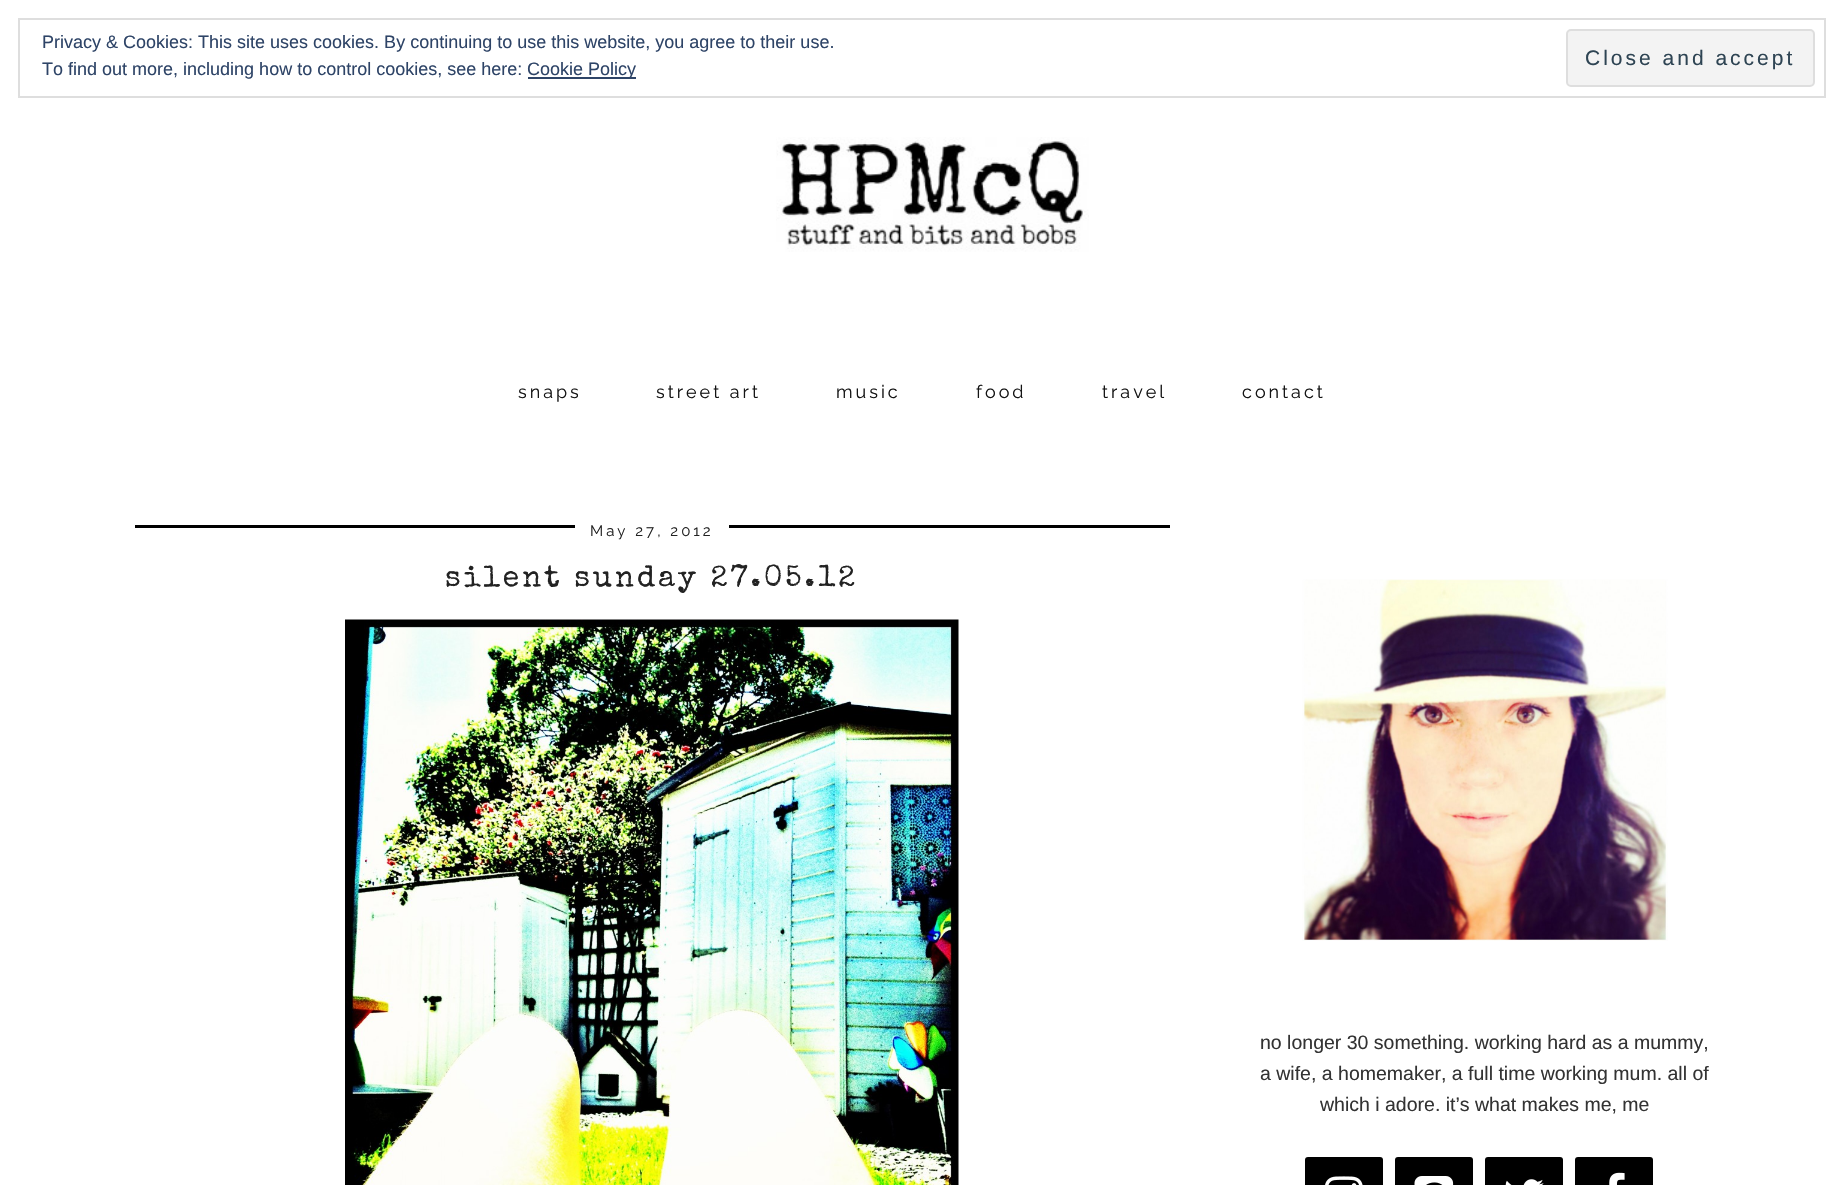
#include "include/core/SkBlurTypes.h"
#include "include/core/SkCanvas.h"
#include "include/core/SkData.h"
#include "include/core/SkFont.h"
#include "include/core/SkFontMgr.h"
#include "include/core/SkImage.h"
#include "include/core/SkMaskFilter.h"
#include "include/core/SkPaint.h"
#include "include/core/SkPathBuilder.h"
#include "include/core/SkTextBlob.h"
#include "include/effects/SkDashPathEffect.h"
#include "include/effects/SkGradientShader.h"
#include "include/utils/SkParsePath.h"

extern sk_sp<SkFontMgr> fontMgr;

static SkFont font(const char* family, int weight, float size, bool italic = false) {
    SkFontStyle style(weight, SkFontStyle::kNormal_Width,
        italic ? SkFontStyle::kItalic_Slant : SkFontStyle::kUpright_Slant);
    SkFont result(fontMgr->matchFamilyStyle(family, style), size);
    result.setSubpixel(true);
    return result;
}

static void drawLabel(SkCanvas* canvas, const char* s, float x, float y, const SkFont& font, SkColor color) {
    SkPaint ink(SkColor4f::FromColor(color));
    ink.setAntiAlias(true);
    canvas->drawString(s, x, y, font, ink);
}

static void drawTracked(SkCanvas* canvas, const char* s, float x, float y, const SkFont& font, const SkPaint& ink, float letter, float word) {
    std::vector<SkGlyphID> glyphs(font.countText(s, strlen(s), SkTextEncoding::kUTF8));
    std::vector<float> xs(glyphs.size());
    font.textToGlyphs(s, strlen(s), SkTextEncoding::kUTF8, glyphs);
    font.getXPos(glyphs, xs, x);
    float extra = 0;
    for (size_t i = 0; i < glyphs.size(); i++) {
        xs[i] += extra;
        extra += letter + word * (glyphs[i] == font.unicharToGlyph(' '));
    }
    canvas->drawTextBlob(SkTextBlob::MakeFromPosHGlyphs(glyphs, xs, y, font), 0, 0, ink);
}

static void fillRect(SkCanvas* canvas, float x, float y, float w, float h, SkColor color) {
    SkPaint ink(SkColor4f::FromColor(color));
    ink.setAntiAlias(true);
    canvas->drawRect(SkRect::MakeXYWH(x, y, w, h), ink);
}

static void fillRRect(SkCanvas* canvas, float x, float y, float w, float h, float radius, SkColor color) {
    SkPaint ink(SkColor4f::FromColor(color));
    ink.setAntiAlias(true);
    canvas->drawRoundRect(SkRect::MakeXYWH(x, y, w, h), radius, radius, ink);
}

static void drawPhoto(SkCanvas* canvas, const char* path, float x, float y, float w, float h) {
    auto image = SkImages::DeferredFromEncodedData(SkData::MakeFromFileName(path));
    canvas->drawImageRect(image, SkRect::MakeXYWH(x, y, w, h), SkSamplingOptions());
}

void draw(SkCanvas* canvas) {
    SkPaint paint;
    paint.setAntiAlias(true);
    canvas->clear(0xFFFFFFFF);
    paint.setStroke(true);
    paint.setStrokeWidth(2);
    paint.setColor(0xFFDEDEDE);
    canvas->drawRect(SkRect::MakeXYWH(19, 19, 1806, 78), paint);
    SkFont font1 = font("Liberation Sans", 400, 18);
    drawLabel(canvas, "Privacy & Cookies: This site uses cookies. By continuing to use this website, you agree to their use.", 42, 48, font1, 0xFF2E4467);
    drawLabel(canvas, "To find out more, including how to control cookies, see here:", 42, 75, font1, 0xFF2E4467);
    fillRect(canvas, 528, 77, 108, 2, 0xFF2E4467);
    drawLabel(canvas, "Cookie Policy", 527, 75, font1, 0xFF2E4467);
    paint.setStroke(false);
    paint.setColor(0xFFF3F3F3);
    canvas->drawRoundRect(SkRect::MakeXYWH(1567, 30, 247, 56), 4, 4, paint);
    paint.setStroke(true);
    paint.setColor(0xFFDEDEDE);
    canvas->drawRoundRect(SkRect::MakeXYWH(1567, 30, 247, 56), 4, 4, paint);
    SkFont font2 = font("Liberation Sans", 400, 21);
    paint.setStroke(false);
    paint.setColor(0xFF2E4453);
    drawTracked(canvas, "Close and accept", 1585, 65, font2, paint, 3, 0);
    drawPhoto(canvas, "assets/img1.png", 776, 137, 313, 115);
    SkFont font3 = font("Raleway", 100, 18);
    paint.setColor(0xFF141414);
    drawTracked(canvas, "snaps", 518, 398, font3, paint, 3, 0);
    drawTracked(canvas, "street art", 656, 398, font3, paint, 3, 0);
    drawTracked(canvas, "music", 836, 398, font3, paint, 3, 0);
    drawTracked(canvas, "food", 976, 398, font3, paint, 3, 0);
    drawTracked(canvas, "travel", 1102, 398, font3, paint, 3, 0);
    drawTracked(canvas, "contact", 1242, 398, font3, paint, 3, 0);
    fillRect(canvas, 135, 525, 1035, 3, 0xFF000000);
    fillRect(canvas, 575, 525, 154, 3, 0xFFFFFFFF);
    SkFont font4 = font("Raleway", 100, 15);
    paint.setColor(0xFF222222);
    drawTracked(canvas, "May 27, 2012", 590, 536, font4, paint, 3, 0);
    SkFont font5 = font("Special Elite", 400, 30);
    drawTracked(canvas, "silent sunday 27.05.12", 445, 586, font5, paint, 3, 0);
    drawPhoto(canvas, "assets/img2.png", 345, 619, 614, 566);
    drawPhoto(canvas, "assets/img3.png", 1302, 579, 366, 362);
    SkFont font6 = font("Liberation Sans", 400, 19.5f);
    drawLabel(canvas, "no longer 30 something. working hard as a mummy,", 1260, 1049, font6, 0xFF333333);
    drawLabel(canvas, "a wife, a homemaker, a full time working mum. all of", 1260, 1080, font6, 0xFF333333);
    drawLabel(canvas, "which i adore. it’s what makes me, me", 1320, 1111, font6, 0xFF333333);
    fillRRect(canvas, 1305, 1157, 78, 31, 3, 0xFF000000);
    drawPhoto(canvas, "assets/img4.png", 1325, 1176, 38, 9);
    fillRRect(canvas, 1395, 1157, 78, 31, 3, 0xFF000000);
    drawPhoto(canvas, "assets/img5.png", 1414, 1176, 40, 9);
    fillRRect(canvas, 1485, 1157, 78, 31, 3, 0xFF000000);
    drawPhoto(canvas, "assets/img6.png", 1505, 1179, 39, 6);
    fillRRect(canvas, 1575, 1157, 78, 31, 3, 0xFF000000);
    drawPhoto(canvas, "assets/img7.png", 1609, 1172, 16, 13);
}
